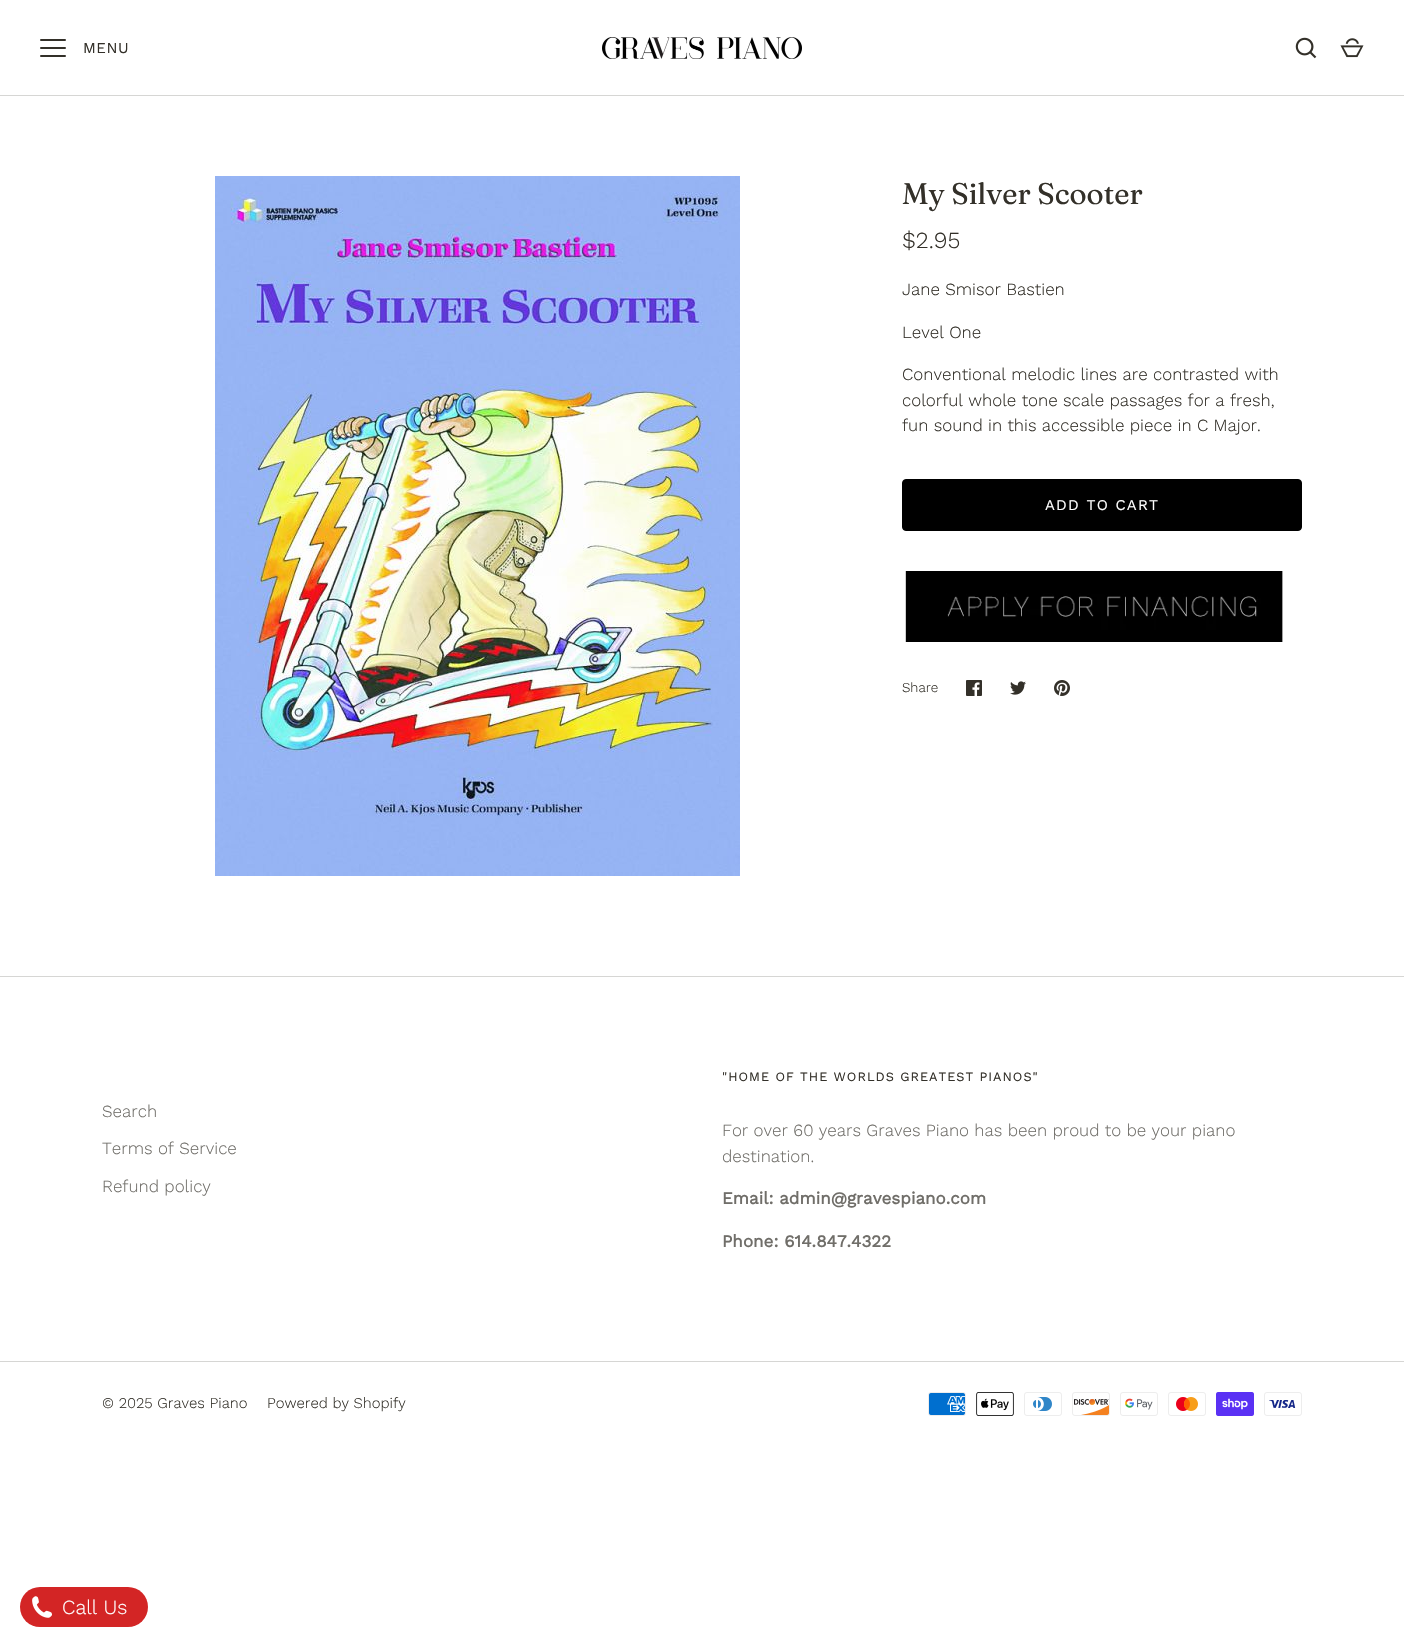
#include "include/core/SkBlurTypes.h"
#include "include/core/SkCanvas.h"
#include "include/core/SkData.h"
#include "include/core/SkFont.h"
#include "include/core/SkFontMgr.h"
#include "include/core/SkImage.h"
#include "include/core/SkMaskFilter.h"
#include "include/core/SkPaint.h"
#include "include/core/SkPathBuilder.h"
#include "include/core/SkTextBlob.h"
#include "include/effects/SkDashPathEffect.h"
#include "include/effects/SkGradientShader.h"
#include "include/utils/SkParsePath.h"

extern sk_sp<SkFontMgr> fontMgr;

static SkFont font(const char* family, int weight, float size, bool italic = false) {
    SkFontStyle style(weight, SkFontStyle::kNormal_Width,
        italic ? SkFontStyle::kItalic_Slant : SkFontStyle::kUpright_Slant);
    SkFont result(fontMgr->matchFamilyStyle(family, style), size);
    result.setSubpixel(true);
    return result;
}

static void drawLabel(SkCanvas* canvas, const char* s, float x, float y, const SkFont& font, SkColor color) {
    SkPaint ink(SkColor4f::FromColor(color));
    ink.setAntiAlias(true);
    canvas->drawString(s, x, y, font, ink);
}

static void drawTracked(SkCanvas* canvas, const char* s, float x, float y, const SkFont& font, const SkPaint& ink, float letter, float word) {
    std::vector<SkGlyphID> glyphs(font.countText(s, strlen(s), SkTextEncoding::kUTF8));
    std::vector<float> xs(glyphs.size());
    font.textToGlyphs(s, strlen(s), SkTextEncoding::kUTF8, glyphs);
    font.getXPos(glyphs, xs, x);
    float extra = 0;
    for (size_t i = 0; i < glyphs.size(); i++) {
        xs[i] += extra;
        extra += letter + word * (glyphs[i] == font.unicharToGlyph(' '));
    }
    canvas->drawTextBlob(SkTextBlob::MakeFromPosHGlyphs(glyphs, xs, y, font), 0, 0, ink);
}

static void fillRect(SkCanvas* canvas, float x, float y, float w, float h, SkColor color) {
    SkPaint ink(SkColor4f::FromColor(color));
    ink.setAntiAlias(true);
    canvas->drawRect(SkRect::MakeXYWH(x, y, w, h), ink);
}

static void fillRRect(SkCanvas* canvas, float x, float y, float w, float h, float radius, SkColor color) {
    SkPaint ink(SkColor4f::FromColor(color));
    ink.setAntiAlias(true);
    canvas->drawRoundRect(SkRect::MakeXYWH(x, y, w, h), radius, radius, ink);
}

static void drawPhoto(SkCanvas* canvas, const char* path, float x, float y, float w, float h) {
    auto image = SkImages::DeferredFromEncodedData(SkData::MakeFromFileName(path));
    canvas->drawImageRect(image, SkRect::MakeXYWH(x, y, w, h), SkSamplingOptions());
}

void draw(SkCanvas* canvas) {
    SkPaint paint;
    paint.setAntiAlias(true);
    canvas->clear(0xFFFFFFFF);
    fillRRect(canvas, 40, 39, 26, 2, 1, 0xFF333029);
    fillRRect(canvas, 40, 47, 26, 2, 1, 0xFF333029);
    fillRRect(canvas, 40, 55, 26, 2, 1, 0xFF333029);
    SkFont font1 = font("Work Sans", 400, 15);
    paint.setColor(0xFF333029);
    drawTracked(canvas, "MENU", 83, 53, font1, paint, 0.5f, 0);
    drawPhoto(canvas, "assets/img1.png", 602, 37, 200, 22);
    drawPhoto(canvas, "assets/img2.png", 1295, 37, 22, 22);
    drawPhoto(canvas, "assets/img3.png", 1340, 38, 24, 20);
    fillRect(canvas, 0, 95, 1404, 1, 0xFFD6D6D4);
    drawPhoto(canvas, "assets/img4.png", 215, 176, 525, 700);
    SkFont font2 = font("Fraunces", 400, 29.75f);
    drawLabel(canvas, "My Silver Scooter", 902, 204, font2, 0xFF333029);
    SkFont font3 = font("Work Sans", 300, 23);
    drawLabel(canvas, "$2.95", 902, 248, font3, 0xFF333029);
    SkFont font4 = font("Work Sans", 300, 17);
    drawLabel(canvas, "Jane Smisor Bastien", 902, 295, font4, 0xFF333029);
    drawLabel(canvas, "Level One", 902, 338, font4, 0xFF333029);
    drawLabel(canvas, "Conventional melodic lines are contrasted with", 902, 380, font4, 0xFF333029);
    drawLabel(canvas, "colorful whole tone scale passages for a fresh,", 902, 406, font4, 0xFF333029);
    drawLabel(canvas, "fun sound in this accessible piece in C Major.", 902, 431, font4, 0xFF333029);
    paint.setColor(0xFF000000);
    canvas->drawRoundRect(SkRect::MakeXYWH(902.5f, 479.5f, 399, 51), 3.5f, 3.5f, paint);
    paint.setStroke(true);
    paint.setStrokeWidth(1);
    canvas->drawRoundRect(SkRect::MakeXYWH(902.5f, 479.5f, 399, 51), 3.5f, 3.5f, paint);
    SkFont font5 = font("Work Sans", 400, 14.9f);
    paint.setStroke(false);
    paint.setColor(0xFFFFFFFF);
    drawTracked(canvas, "ADD TO CART", 1045, 510, font5, paint, 1.25f, 0);
    drawPhoto(canvas, "assets/img5.png", 905, 571, 378, 71);
    SkFont font6 = font("Work Sans", 300, 13.5f);
    drawLabel(canvas, "Share", 902, 692, font6, 0xFF333029);
    drawPhoto(canvas, "assets/img6.png", 966, 680, 16, 16);
    drawPhoto(canvas, "assets/img7.png", 1010, 681, 16, 14);
    drawPhoto(canvas, "assets/img8.png", 1054, 680, 16, 16);
    fillRect(canvas, 0, 976, 1404, 1, 0xFFD6D6D4);
    drawLabel(canvas, "Search", 102, 1117, font4, 0xFF706E69);
    drawLabel(canvas, "Terms of Service", 102, 1154, font4, 0xFF706E69);
    drawLabel(canvas, "Refund policy", 102, 1192, font4, 0xFF706E69);
    SkFont font7 = font("Work Sans", 400, 12.75f);
    paint.setColor(0xFF333029);
    drawTracked(canvas, "\"HOME OF THE WORLDS GREATEST PIANOS\"", 722, 1081, font7, paint, 1, 0);
    drawLabel(canvas, "For over 60 years Graves Piano has been proud to be your piano", 722, 1136, font4, 0xFF706E69);
    drawLabel(canvas, "destination.", 722, 1162, font4, 0xFF706E69);
    SkFont font8 = font("Work Sans", 700, 17);
    drawLabel(canvas, "Email: admin@gravespiano.com", 722, 1204, font8, 0xFF706E69);
    drawLabel(canvas, "Phone: 614.847.4322", 722, 1247, font8, 0xFF706E69);
    fillRect(canvas, 0, 1361, 1404, 1, 0xFFD6D6D4);
    SkFont font9 = font("Work Sans", 300, 14.9f);
    drawLabel(canvas, "© 2025 Graves Piano", 102, 1408, font9, 0xFF333029);
    drawLabel(canvas, "Powered by Shopify", 267, 1408, font9, 0xFF333029);
    drawPhoto(canvas, "assets/img9.png", 928, 1392, 38, 24);
    drawPhoto(canvas, "assets/img10.png", 976, 1392, 38, 24);
    drawPhoto(canvas, "assets/img11.png", 1024, 1392, 38, 24);
    drawPhoto(canvas, "assets/img12.png", 1072, 1392, 38, 24);
    drawPhoto(canvas, "assets/img13.png", 1120, 1392, 38, 24);
    drawPhoto(canvas, "assets/img14.png", 1168, 1392, 38, 24);
    drawPhoto(canvas, "assets/img15.png", 1216, 1392, 38, 24);
    drawPhoto(canvas, "assets/img16.png", 1264, 1392, 38, 24);
    fillRRect(canvas, 20, 1587, 128, 40, 20, 0xFFD32525);
    drawPhoto(canvas, "assets/img17.png", 32, 1596, 20, 22);
    SkFont font10 = font("Work Sans", 300, 20);
    drawLabel(canvas, "Call Us", 62, 1614, font10, 0xFFFFFFFF);
}
